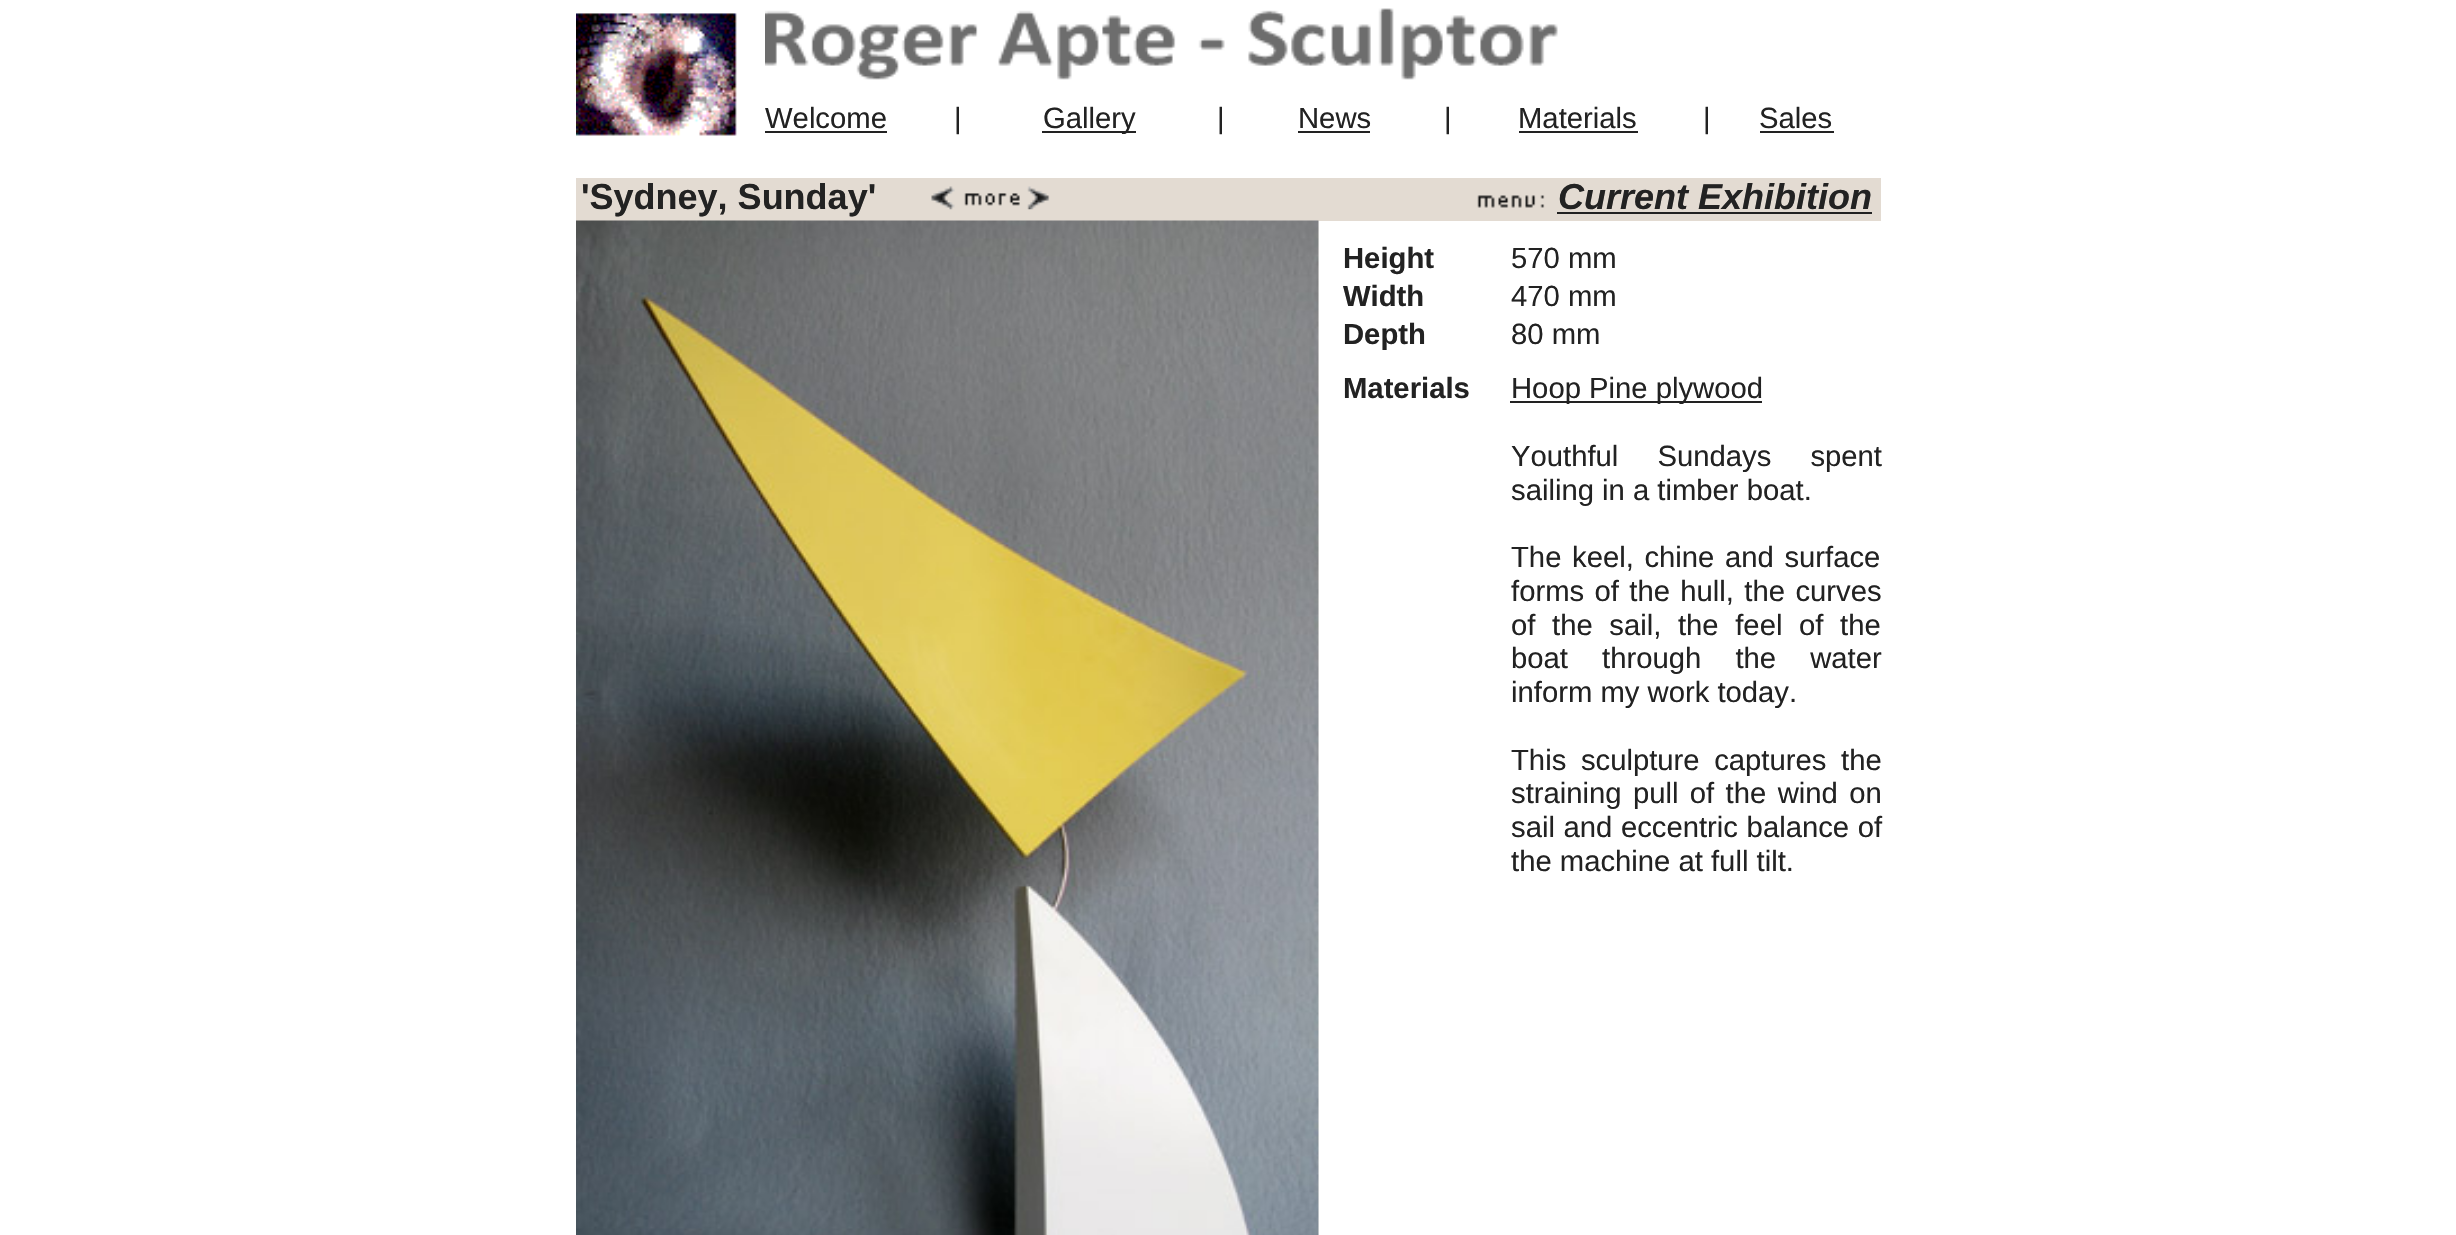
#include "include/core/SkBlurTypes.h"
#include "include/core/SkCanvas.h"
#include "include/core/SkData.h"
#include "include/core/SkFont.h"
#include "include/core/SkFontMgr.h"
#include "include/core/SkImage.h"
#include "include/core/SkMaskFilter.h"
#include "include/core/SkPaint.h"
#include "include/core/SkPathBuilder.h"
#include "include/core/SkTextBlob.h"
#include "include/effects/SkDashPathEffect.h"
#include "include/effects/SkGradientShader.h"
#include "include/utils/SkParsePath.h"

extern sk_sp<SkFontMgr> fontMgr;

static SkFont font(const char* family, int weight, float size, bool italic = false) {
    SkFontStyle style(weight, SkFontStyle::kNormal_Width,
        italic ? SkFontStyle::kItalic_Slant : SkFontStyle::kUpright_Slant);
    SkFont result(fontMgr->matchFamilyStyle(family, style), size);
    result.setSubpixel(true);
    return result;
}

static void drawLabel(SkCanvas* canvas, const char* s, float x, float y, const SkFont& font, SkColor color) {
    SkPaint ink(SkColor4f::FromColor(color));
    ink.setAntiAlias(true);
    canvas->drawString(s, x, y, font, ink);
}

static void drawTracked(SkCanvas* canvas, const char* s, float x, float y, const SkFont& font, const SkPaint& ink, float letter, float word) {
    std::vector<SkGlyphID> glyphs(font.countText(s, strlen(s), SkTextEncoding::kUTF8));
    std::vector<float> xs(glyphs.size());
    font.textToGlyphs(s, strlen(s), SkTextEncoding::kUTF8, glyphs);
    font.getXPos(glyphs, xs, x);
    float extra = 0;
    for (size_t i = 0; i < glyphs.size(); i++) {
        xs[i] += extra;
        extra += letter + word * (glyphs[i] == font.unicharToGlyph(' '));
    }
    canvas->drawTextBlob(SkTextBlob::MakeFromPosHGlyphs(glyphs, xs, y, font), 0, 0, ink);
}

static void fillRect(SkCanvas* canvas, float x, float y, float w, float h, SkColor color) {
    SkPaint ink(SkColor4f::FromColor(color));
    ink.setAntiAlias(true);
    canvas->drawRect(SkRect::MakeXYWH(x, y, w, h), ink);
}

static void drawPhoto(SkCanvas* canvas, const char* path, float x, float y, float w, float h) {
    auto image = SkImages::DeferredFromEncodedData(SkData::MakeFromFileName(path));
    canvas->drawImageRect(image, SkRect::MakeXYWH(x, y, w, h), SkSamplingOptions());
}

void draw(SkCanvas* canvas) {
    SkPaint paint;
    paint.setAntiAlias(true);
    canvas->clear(0xFFFFFFFF);
    drawPhoto(canvas, "assets/img1.png", 576, 13, 161, 123);
    drawPhoto(canvas, "assets/img2.png", 765, 8, 793, 72);
    SkFont font1 = font("Liberation Sans", 400, 29.25f);
    drawLabel(canvas, "Welcome", 765, 128, font1, 0xFF222222);
    fillRect(canvas, 765, 131, 122, 2, 0xFF222222);
    drawLabel(canvas, "|", 954, 128, font1, 0xFF222222);
    fillRect(canvas, 1042, 131, 94, 2, 0xFF222222);
    drawLabel(canvas, "Gallery", 1043, 128, font1, 0xFF222222);
    drawLabel(canvas, "|", 1217, 128, font1, 0xFF222222);
    drawLabel(canvas, "News", 1298, 128, font1, 0xFF222222);
    fillRect(canvas, 1298, 131, 72, 2, 0xFF222222);
    drawLabel(canvas, "|", 1444, 128, font1, 0xFF222222);
    drawLabel(canvas, "Materials", 1518, 128, font1, 0xFF222222);
    fillRect(canvas, 1519, 131, 119, 2, 0xFF222222);
    drawLabel(canvas, "|", 1703, 128, font1, 0xFF222222);
    drawLabel(canvas, "Sales", 1759, 128, font1, 0xFF222222);
    fillRect(canvas, 1760, 131, 74, 2, 0xFF222222);
    fillRect(canvas, 576, 178, 1305, 43, 0xFFE3DBD2);
    SkFont font2 = font("Liberation Sans", 700, 36);
    drawLabel(canvas, "'Sydney, Sunday'", 581, 209, font2, 0xFF222222);
    drawPhoto(canvas, "assets/img3.png", 931, 186, 24, 24);
    drawPhoto(canvas, "assets/img4.png", 964, 186, 86, 24);
    drawPhoto(canvas, "assets/img5.png", 1477, 195, 68, 13);
    SkFont font3 = font("Liberation Sans", 700, 36, true);
    drawLabel(canvas, "Current Exhibition", 1558, 209, font3, 0xFF222222);
    fillRect(canvas, 1557, 212, 315, 2, 0xFF222222);
    fillRect(canvas, 1318, 221, 1, 1014, 0xFFF8F7F3);
    drawPhoto(canvas, "assets/img6.png", 576, 220, 743, 1015);
    SkFont font4 = font("Liberation Sans", 700, 29.25f);
    drawLabel(canvas, "Height", 1343, 268, font4, 0xFF222222);
    drawLabel(canvas, "570 mm", 1511, 268, font1, 0xFF222222);
    drawLabel(canvas, "Width", 1343, 306, font4, 0xFF222222);
    drawLabel(canvas, "470 mm", 1511, 306, font1, 0xFF222222);
    drawLabel(canvas, "Depth", 1343, 344, font4, 0xFF222222);
    drawLabel(canvas, "80 mm", 1511, 344, font1, 0xFF222222);
    drawLabel(canvas, "Materials", 1343, 398, font4, 0xFF222222);
    fillRect(canvas, 1510, 401, 252, 2, 0xFF222222);
    drawLabel(canvas, "Hoop Pine plywood", 1511, 398, font1, 0xFF222222);
    paint.setColor(0xFF222222);
    drawTracked(canvas, "Youthful Sundays spent", 1511, 466, font1, paint, 0, 31);
    drawLabel(canvas, "sailing in a timber boat.", 1511, 500, font1, 0xFF222222);
    drawTracked(canvas, "The keel, chine and surface", 1511, 567, font1, paint, 0, 2.5f);
    drawTracked(canvas, "forms of the hull, the curves", 1511, 601, font1, paint, 0, 2.25f);
    drawTracked(canvas, "of the sail, the feel of the", 1511, 635, font1, paint, 0, 8.5f);
    drawTracked(canvas, "boat through the water", 1511, 668, font1, paint, 0, 26);
    drawLabel(canvas, "inform my work today.", 1511, 702, font1, 0xFF222222);
    drawTracked(canvas, "This sculpture captures the", 1511, 770, font1, paint, 0, 6.5f);
    drawTracked(canvas, "straining pull of the wind on", 1511, 803, font1, paint, 0, 3.25f);
    drawTracked(canvas, "sail and eccentric balance of", 1511, 837, font1, paint, 0, 0.5f);
    drawLabel(canvas, "the machine at full tilt.", 1511, 871, font1, 0xFF222222);
}
